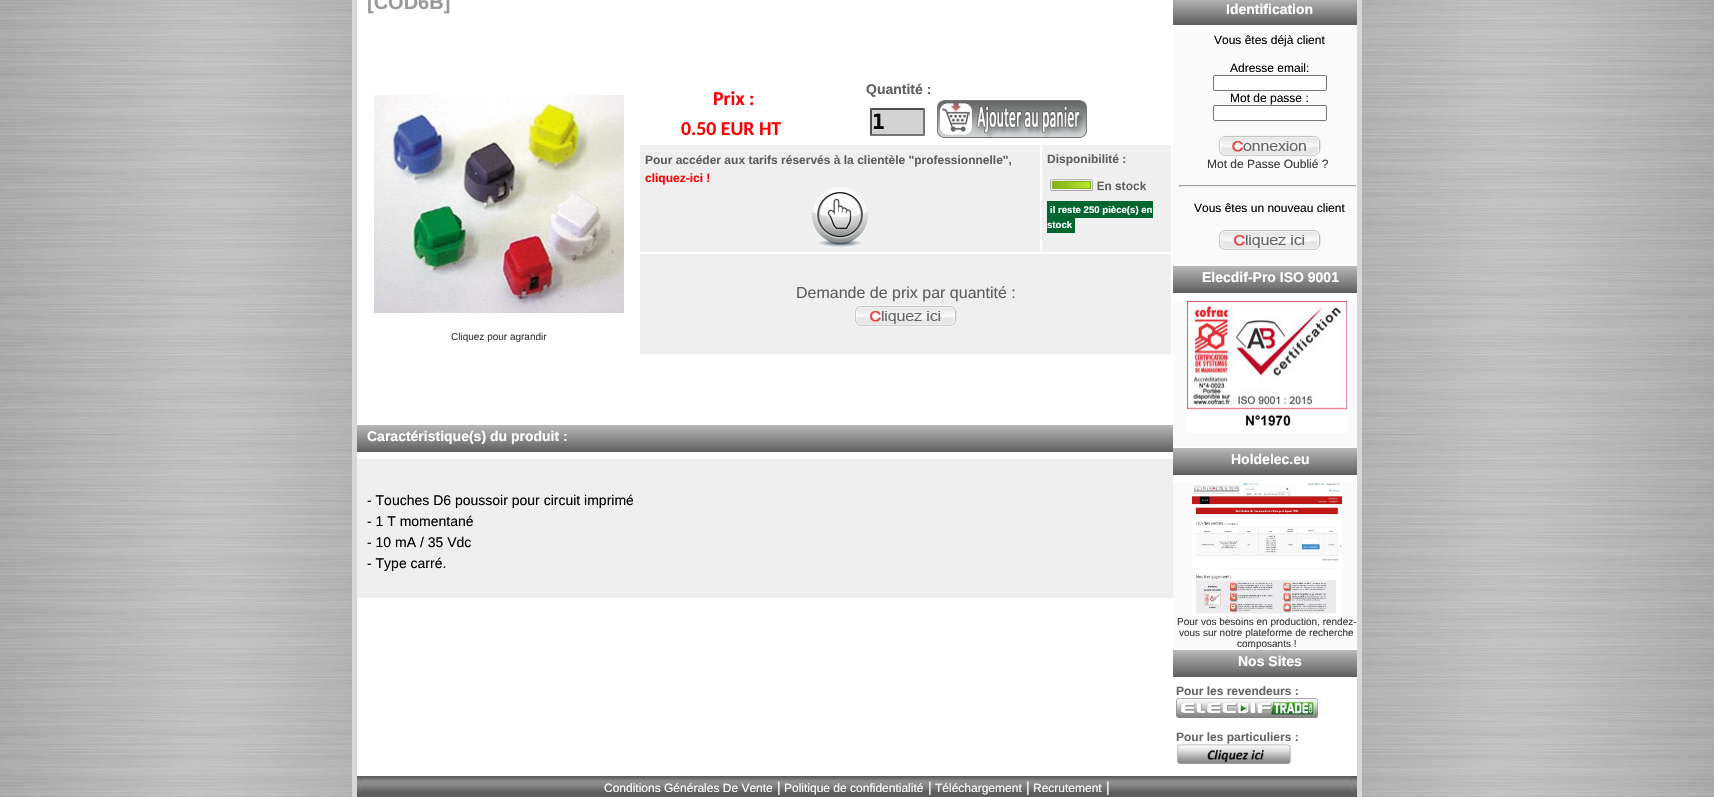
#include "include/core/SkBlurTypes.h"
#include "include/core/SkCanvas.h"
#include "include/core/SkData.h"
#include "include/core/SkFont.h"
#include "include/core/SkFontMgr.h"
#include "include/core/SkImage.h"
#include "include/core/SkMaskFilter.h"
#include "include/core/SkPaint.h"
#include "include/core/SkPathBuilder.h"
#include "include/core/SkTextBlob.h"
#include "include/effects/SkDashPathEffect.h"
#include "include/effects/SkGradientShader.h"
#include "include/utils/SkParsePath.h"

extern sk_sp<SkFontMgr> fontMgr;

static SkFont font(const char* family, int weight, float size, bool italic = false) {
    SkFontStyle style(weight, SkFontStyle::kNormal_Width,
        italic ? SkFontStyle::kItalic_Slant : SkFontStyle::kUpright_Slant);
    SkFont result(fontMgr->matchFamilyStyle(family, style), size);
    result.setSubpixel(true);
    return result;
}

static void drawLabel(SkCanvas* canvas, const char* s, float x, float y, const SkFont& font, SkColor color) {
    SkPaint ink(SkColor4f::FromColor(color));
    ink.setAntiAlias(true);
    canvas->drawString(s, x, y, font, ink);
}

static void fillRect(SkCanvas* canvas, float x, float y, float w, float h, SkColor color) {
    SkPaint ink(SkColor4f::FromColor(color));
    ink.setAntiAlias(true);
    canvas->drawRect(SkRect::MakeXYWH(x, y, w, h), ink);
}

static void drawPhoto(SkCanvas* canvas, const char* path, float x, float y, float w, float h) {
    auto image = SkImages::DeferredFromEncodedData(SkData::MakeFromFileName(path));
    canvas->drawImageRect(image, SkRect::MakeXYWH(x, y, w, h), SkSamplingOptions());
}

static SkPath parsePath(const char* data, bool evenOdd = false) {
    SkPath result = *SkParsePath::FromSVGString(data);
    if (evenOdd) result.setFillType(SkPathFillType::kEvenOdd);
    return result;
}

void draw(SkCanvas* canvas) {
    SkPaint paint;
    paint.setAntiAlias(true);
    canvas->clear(0xFFFFFFFF);
    drawPhoto(canvas, "assets/img1.png", 0, 0, 1714, 797);
    SkFont font1 = font("Liberation Sans", 700, 20);
    drawLabel(canvas, "[COD6B]", 367, 9, font1, 0xFF9A9A9A);
    SkFont font2 = font("Carlito", 700, 19.75f);
    drawLabel(canvas, "Prix :", 713, 105, font2, 0xFFFF0000);
    drawLabel(canvas, "0.50 EUR HT", 681, 135, font2, 0xFFFF0000);
    SkFont font3 = font("Liberation Sans", 700, 14);
    drawLabel(canvas, "Quantité :", 866, 94, font3, 0xFF5E5E5E);
    fillRect(canvas, 870, 108, 55, 28, 0xFFD3D3D3);
    paint.setColor(0xFF4F4F4F);
    canvas->drawPath(parsePath("M870 108H925L923 110H872Z"), paint);
    paint.setColor(0xFF767676);
    canvas->drawPath(parsePath("M925 108V136L923 134V110Z"), paint);
    canvas->drawPath(parsePath("M925 136H870L872 134H923Z"), paint);
    paint.setColor(0xFF4F4F4F);
    canvas->drawPath(parsePath("M870 136V108L872 110V134Z"), paint);
    SkFont font4 = font("DejaVu Sans Mono", 700, 21);
    drawLabel(canvas, "1", 872, 129, font4, 0xFF000000);
    drawPhoto(canvas, "assets/img2.png", 937, 100, 150, 38);
    drawPhoto(canvas, "assets/img3.png", 374, 95, 250, 223);
    SkFont font5 = font("Liberation Sans", 400, 10);
    drawLabel(canvas, "Cliquez pour agrandir", 451, 340, font5, 0xFF393939);
    fillRect(canvas, 640, 145, 400, 107, 0xFFEFEFEF);
    SkFont font6 = font("Liberation Sans", 700, 12);
    drawLabel(canvas, "Pour accéder aux tarifs réservés à la clientèle \"professionnelle\",", 645, 164, font6, 0xFF5E5E5E);
    drawLabel(canvas, "cliquez-ici !", 645, 182, font6, 0xFFFF0000);
    drawPhoto(canvas, "assets/img4.png", 812, 187, 56, 60);
    fillRect(canvas, 1042, 145, 129, 107, 0xFFEFEFEF);
    drawLabel(canvas, "Disponibilité :", 1047, 163, font6, 0xFF5E5E5E);
    drawPhoto(canvas, "assets/img5.png", 1050, 179, 97, 12);
    fillRect(canvas, 1047, 201, 106, 17, 0xFF006630);
    SkFont font7 = font("Liberation Sans", 700, 9.6f);
    drawLabel(canvas, "il reste 250 pièce(s) en", 1050, 213, font7, 0xFFFFFFFF);
    fillRect(canvas, 1047, 218, 28, 15, 0xFF006630);
    drawLabel(canvas, "stock", 1047, 228, font7, 0xFFFFFFFF);
    fillRect(canvas, 640, 254, 531, 100, 0xFFEFEFEF);
    SkFont font8 = font("Liberation Sans", 400, 16);
    drawLabel(canvas, "Demande de prix par quantité :", 796, 298, font8, 0xFF5E5E5E);
    drawPhoto(canvas, "assets/img6.png", 854, 305, 103, 22);
    {
        const SkColor colors[] = {0xFFB9B9B9, 0xFF5E5E5E};
        const float stops[] = {0, 1};
        const SkPoint ends[] = {{357, 425}, {357, 452}};
        paint.setShader(SkGradientShader::MakeLinear(ends, colors, stops, 2, SkTileMode::kClamp));
        paint.setAlpha(255);
    }
    canvas->drawRect(SkRect::MakeXYWH(357, 425, 816, 27), paint);
    drawLabel(canvas, "Caractéristique(s) du produit :", 367, 441, font3, 0xFFFFFFFF);
    fillRect(canvas, 357, 459, 816, 139, 0xFFEFEFEF);
    SkFont font9 = font("Liberation Sans", 400, 14);
    drawLabel(canvas, "- Touches D6 poussoir pour circuit imprimé", 367, 505, font9, 0xFF000000);
    drawLabel(canvas, "- 1 T momentané", 367, 526, font9, 0xFF000000);
    drawLabel(canvas, "- 10 mA / 35 Vdc", 367, 547, font9, 0xFF000000);
    drawLabel(canvas, "- Type carré.", 367, 568, font9, 0xFF000000);
    {
        const SkColor colors[] = {0xFFB9B9B9, 0xFF5E5E5E};
        const float stops[] = {0, 1};
        const SkPoint ends[] = {{1173, -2}, {1173, 25}};
        paint.setShader(SkGradientShader::MakeLinear(ends, colors, stops, 2, SkTileMode::kClamp));
        paint.setAlpha(255);
    }
    canvas->drawRect(SkRect::MakeXYWH(1173, 0, 184, 25), paint);
    drawLabel(canvas, "Identification", 1226, 14, font3, 0xFFFFFFFF);
    fillRect(canvas, 1173, 32, 184, 234, 0xFFFAFAFA);
    SkFont font10 = font("Liberation Sans", 400, 12);
    drawLabel(canvas, "Vous êtes déjà client", 1214, 44, font10, 0xFF000000);
    drawLabel(canvas, "Adresse email:", 1230, 72, font10, 0xFF000000);
    paint.setShader(nullptr);
    paint.setColor(0xFFFFFFFF);
    canvas->drawRoundRect(SkRect::MakeXYWH(1213.5f, 75.5f, 113, 15), 1.5f, 1.5f, paint);
    paint.setStroke(true);
    paint.setStrokeWidth(1);
    paint.setColor(0xFF767676);
    canvas->drawRoundRect(SkRect::MakeXYWH(1213.5f, 75.5f, 113, 15), 1.5f, 1.5f, paint);
    drawLabel(canvas, "Mot de passe :", 1230, 102, font10, 0xFF000000);
    paint.setStroke(false);
    paint.setColor(0xFFFFFFFF);
    canvas->drawRoundRect(SkRect::MakeXYWH(1213.5f, 105.5f, 113, 15), 1.5f, 1.5f, paint);
    paint.setStroke(true);
    paint.setColor(0xFF767676);
    canvas->drawRoundRect(SkRect::MakeXYWH(1213.5f, 105.5f, 113, 15), 1.5f, 1.5f, paint);
    drawPhoto(canvas, "assets/img7.png", 1218, 135, 103, 21);
    drawLabel(canvas, "Mot de Passe Oublié ?", 1207, 168, font10, 0xFF393939);
    fillRect(canvas, 1179, 185, 178, 1, 0xFF9F9F9F);
    fillRect(canvas, 1356, 185, 1, 2, 0xFFEEEEEE);
    fillRect(canvas, 1179, 186, 178, 1, 0xFFEEEEEE);
    fillRect(canvas, 1179, 185, 1, 2, 0xFF9F9F9F);
    drawLabel(canvas, "Vous êtes un nouveau client", 1194, 212, font10, 0xFF000000);
    drawPhoto(canvas, "assets/img8.png", 1218, 229, 103, 21);
    paint.setStroke(false);
    {
        const SkColor colors[] = {0xFFB9B9B9, 0xFF5E5E5E};
        const float stops[] = {0, 1};
        const SkPoint ends[] = {{1173, 266}, {1173, 293}};
        paint.setShader(SkGradientShader::MakeLinear(ends, colors, stops, 2, SkTileMode::kClamp));
        paint.setAlpha(255);
    }
    canvas->drawRect(SkRect::MakeXYWH(1173, 266, 184, 27), paint);
    drawLabel(canvas, "Elecdif-Pro ISO 9001", 1202, 282, font3, 0xFFFFFFFF);
    fillRect(canvas, 1173, 301, 184, 146, 0xFFFAFAFA);
    drawPhoto(canvas, "assets/img9.png", 1187, 301, 160, 132);
    {
        const SkColor colors[] = {0xFFB9B9B9, 0xFF5E5E5E};
        const float stops[] = {0, 1};
        const SkPoint ends[] = {{1173, 448}, {1173, 475}};
        paint.setShader(SkGradientShader::MakeLinear(ends, colors, stops, 2, SkTileMode::kClamp));
        paint.setAlpha(255);
    }
    canvas->drawRect(SkRect::MakeXYWH(1173, 448, 184, 27), paint);
    drawLabel(canvas, "Holdelec.eu", 1231, 464, font3, 0xFFFFFFFF);
    fillRect(canvas, 1173, 483, 184, 166, 0xFFFAFAFA);
    drawPhoto(canvas, "assets/img10.png", 1192, 483, 150, 133);
    drawLabel(canvas, "Pour vos besoins en production, rendez-", 1177, 625, font5, 0xFF393939);
    drawLabel(canvas, "vous sur notre plateforme de recherche", 1179, 636, font5, 0xFF393939);
    drawLabel(canvas, "composants !", 1237, 647, font5, 0xFF393939);
    {
        const SkColor colors[] = {0xFFB9B9B9, 0xFF5E5E5E};
        const float stops[] = {0, 1};
        const SkPoint ends[] = {{1173, 650}, {1173, 677}};
        paint.setShader(SkGradientShader::MakeLinear(ends, colors, stops, 2, SkTileMode::kClamp));
        paint.setAlpha(255);
    }
    canvas->drawRect(SkRect::MakeXYWH(1173, 650, 184, 27), paint);
    drawLabel(canvas, "Nos Sites", 1238, 666, font3, 0xFFFFFFFF);
    drawLabel(canvas, "Pour les revendeurs :", 1176, 695, font6, 0xFF666666);
    drawPhoto(canvas, "assets/img11.png", 1176, 698, 142, 20);
    drawLabel(canvas, "Pour les particuliers :", 1176, 741, font6, 0xFF666666);
    drawPhoto(canvas, "assets/img12.png", 1176, 744, 115, 20);
    drawPhoto(canvas, "assets/img13.png", 357, 776, 10, 21);
    drawPhoto(canvas, "assets/img14.png", 360, 777, 5, 19);
    drawPhoto(canvas, "assets/img15.png", 367, 776, 980, 21);
    drawLabel(canvas, "Conditions Générales De Vente", 604, 792, font10, 0xFFFFFFFF);
    drawLabel(canvas, "|", 777, 792, font9, 0xFFFFFFFF);
    drawLabel(canvas, "Politique de confidentialité", 784, 792, font10, 0xFFFFFFFF);
    drawLabel(canvas, "|", 928, 792, font9, 0xFFFFFFFF);
    drawLabel(canvas, "Téléchargement", 935, 792, font10, 0xFFFFFFFF);
    drawLabel(canvas, "|", 1026, 792, font9, 0xFFFFFFFF);
    drawLabel(canvas, "Recrutement", 1033, 792, font10, 0xFFFFFFFF);
    drawLabel(canvas, "|", 1106, 792, font9, 0xFFFFFFFF);
    drawPhoto(canvas, "assets/img13.png", 1347, 776, 10, 21);
    drawPhoto(canvas, "assets/img14.png", 1350, 777, 5, 19);
}
